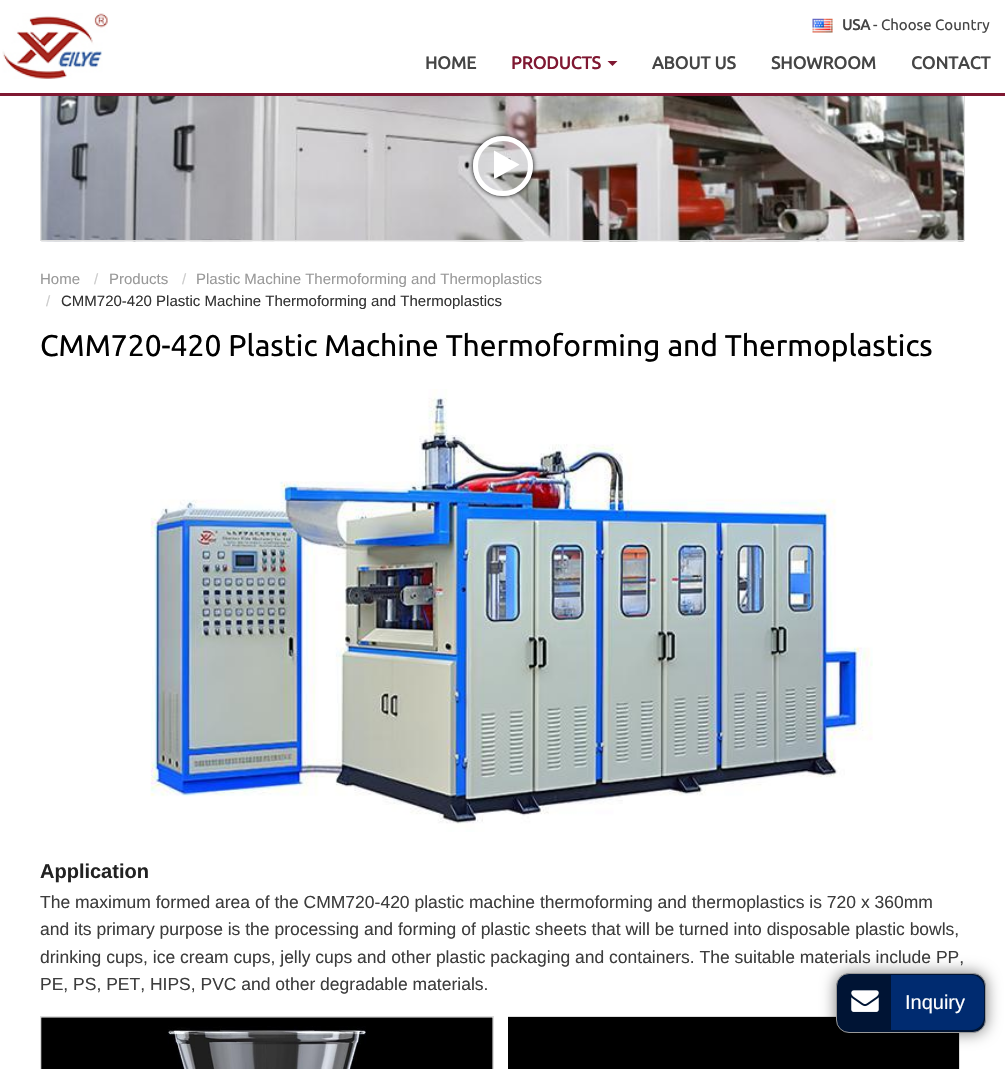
#include "include/core/SkBlurTypes.h"
#include "include/core/SkCanvas.h"
#include "include/core/SkData.h"
#include "include/core/SkFont.h"
#include "include/core/SkFontMgr.h"
#include "include/core/SkImage.h"
#include "include/core/SkMaskFilter.h"
#include "include/core/SkPaint.h"
#include "include/core/SkPathBuilder.h"
#include "include/core/SkTextBlob.h"
#include "include/effects/SkDashPathEffect.h"
#include "include/effects/SkGradientShader.h"
#include "include/utils/SkParsePath.h"

extern sk_sp<SkFontMgr> fontMgr;

static SkFont font(const char* family, int weight, float size, bool italic = false) {
    SkFontStyle style(weight, SkFontStyle::kNormal_Width,
        italic ? SkFontStyle::kItalic_Slant : SkFontStyle::kUpright_Slant);
    SkFont result(fontMgr->matchFamilyStyle(family, style), size);
    result.setSubpixel(true);
    return result;
}

static void drawLabel(SkCanvas* canvas, const char* s, float x, float y, const SkFont& font, SkColor color) {
    SkPaint ink(SkColor4f::FromColor(color));
    ink.setAntiAlias(true);
    canvas->drawString(s, x, y, font, ink);
}

static void fillRect(SkCanvas* canvas, float x, float y, float w, float h, SkColor color) {
    SkPaint ink(SkColor4f::FromColor(color));
    ink.setAntiAlias(true);
    canvas->drawRect(SkRect::MakeXYWH(x, y, w, h), ink);
}

static void drawPhoto(SkCanvas* canvas, const char* path, float x, float y, float w, float h) {
    auto image = SkImages::DeferredFromEncodedData(SkData::MakeFromFileName(path));
    canvas->drawImageRect(image, SkRect::MakeXYWH(x, y, w, h), SkSamplingOptions());
}

static SkPath parsePath(const char* data, bool evenOdd = false) {
    SkPath result = *SkParsePath::FromSVGString(data);
    if (evenOdd) result.setFillType(SkPathFillType::kEvenOdd);
    return result;
}

void draw(SkCanvas* canvas) {
    SkPaint paint;
    paint.setAntiAlias(true);
    canvas->clear(0xFFFFFFFF);
    drawPhoto(canvas, "assets/img3.png", 41, 96, 923, 146);
    paint.setStroke(true);
    paint.setStrokeWidth(1);
    paint.setColor(0xFFDDDDDD);
    canvas->drawRect(SkRect::MakeXYWH(40.5f, 91.5f, 924, 149), paint);
    fillRect(canvas, 40, 91, 925, 2, 0xFFFFFFFF);
    fillRect(canvas, 0, 93, 1005, 3, 0xFF7F1832);
    drawPhoto(canvas, "assets/img1.png", 2, 13, 106, 66);
    drawPhoto(canvas, "assets/img2.png", 812, 18, 21, 15);
    SkFont font1 = font("Ubuntu", 700, 15);
    drawLabel(canvas, "USA", 842, 30, font1, 0xFF454545);
    SkFont font2 = font("Ubuntu", 400, 15);
    drawLabel(canvas, "- Choose Country", 873, 30, font2, 0xFF454545);
    SkFont font3 = font("Ubuntu", 700, 17.5f);
    drawLabel(canvas, "HOME", 425, 69, font3, 0xFF454545);
    drawLabel(canvas, "PRODUCTS", 511, 69, font3, 0xFF7F1832);
    paint.setStroke(false);
    paint.setColor(0xFF7F1832);
    canvas->drawPath(parsePath("M607.5 61H617.5L612.5 66Z"), paint);
    drawLabel(canvas, "ABOUT US", 652, 69, font3, 0xFF454545);
    drawLabel(canvas, "SHOWROOM", 771, 69, font3, 0xFF454545);
    drawLabel(canvas, "CONTACT", 911, 69, font3, 0xFF454545);
    canvas->save();
    canvas->clipPath(parsePath("M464 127H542V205H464ZM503 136C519.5 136 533 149.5 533 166C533 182.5 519.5 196 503 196C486.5 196 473 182.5 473 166C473 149.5 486.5 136 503 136Z", true), true);
    paint.setColor(0xFF000000);
    paint.setMaskFilter(SkMaskFilter::MakeBlur(kNormal_SkBlurStyle, 2.5f));
    canvas->drawRoundRect(SkRect::MakeXYWH(473, 136, 60, 60), 30, 30, paint);
    paint.setMaskFilter(nullptr);
    canvas->restore();
    paint.setStroke(true);
    paint.setStrokeWidth(5);
    paint.setColor(0xFFFFFFFF);
    canvas->drawCircle(503, 166, 27.5f, paint);
    paint.setStroke(false);
    canvas->drawPath(parsePath("M519 165L499 176.5C498.5 176.5 494.5 179.5 494 178.5V151V150.5L515 162L519.5 164.5Z"), paint);
    SkFont font4 = font("Liberation Sans", 400, 15);
    drawLabel(canvas, "Home", 40, 284, font4, 0xFF999999);
    drawLabel(canvas, "/", 94, 284, font4, 0xFFCCCCCC);
    drawLabel(canvas, "Products", 109, 284, font4, 0xFF999999);
    drawLabel(canvas, "/", 182, 284, font4, 0xFFCCCCCC);
    drawLabel(canvas, "Plastic Machine Thermoforming and Thermoplastics", 196, 284, font4, 0xFF999999);
    drawLabel(canvas, "/", 46, 306, font4, 0xFFCCCCCC);
    drawLabel(canvas, "CMM720-420 Plastic Machine Thermoforming and Thermoplastics", 61, 306, font4, 0xFF333333);
    SkFont font5 = font("Ubuntu", 400, 30);
    drawLabel(canvas, "CMM720-420 Plastic Machine Thermoforming and Thermoplastics", 40, 356, font5, 0xFF000000);
    drawPhoto(canvas, "assets/img4.png", 150, 389, 723, 443);
    SkFont font6 = font("Liberation Sans", 700, 20);
    drawLabel(canvas, "Application", 40, 878, font6, 0xFF222222);
    SkFont font7 = font("Liberation Sans", 400, 17.5f);
    drawLabel(canvas, "The maximum formed area of the CMM720-420 plastic machine thermoforming and thermoplastics is 720 x 360mm", 40, 908, font7, 0xFF3D3D3D);
    drawLabel(canvas, "and its primary purpose is the processing and forming of plastic sheets that will be turned into disposable plastic bowls,", 40, 935, font7, 0xFF3D3D3D);
    drawLabel(canvas, "drinking cups, ice cream cups, jelly cups and other plastic packaging and containers. The suitable materials include PP,", 40, 963, font7, 0xFF3D3D3D);
    drawLabel(canvas, "PE, PS, PET, HIPS, PVC and other degradable materials.", 40, 990, font7, 0xFF3D3D3D);
    paint.setStroke(true);
    paint.setStrokeWidth(1);
    paint.setColor(0xFFDDDDDD);
    canvas->drawRect(SkRect::MakeXYWH(40.5f, 1016.5f, 453, 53), paint);
    drawPhoto(canvas, "assets/img5.png", 41, 1017, 452, 52);
    canvas->drawRect(SkRect::MakeXYWH(508.5f, 1016.5f, 451, 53), paint);
    fillRect(canvas, 508, 1017, 451, 52, 0xFF000000);
    paint.setStroke(false);
    paint.setColor(0x80000000);
    paint.setMaskFilter(SkMaskFilter::MakeBlur(kNormal_SkBlurStyle, 7.5f));
    canvas->drawRoundRect(SkRect::MakeXYWH(836, 973, 150, 60), 13, 13, paint);
    paint.setMaskFilter(nullptr);
    paint.setColor(0xFF001434);
    canvas->drawRoundRect(SkRect::MakeXYWH(836.5f, 973.5f, 149, 59), 12.5f, 12.5f, paint);
    paint.setStroke(true);
    paint.setColor(0xFF999999);
    canvas->drawRoundRect(SkRect::MakeXYWH(836.5f, 973.5f, 149, 59), 12.5f, 12.5f, paint);
    drawPhoto(canvas, "assets/img6.png", 851, 990, 28, 22);
    paint.setStroke(false);
    paint.setColor(0xFF002B70);
    canvas->drawPath(parsePath("M891 975H971C978 975 984 981 984 988V1017C984 1024 978 1030 971 1030H891Z"), paint);
    SkFont font8 = font("Liberation Sans", 400, 20);
    drawLabel(canvas, "Inquiry", 905, 1009, font8, 0xFFFFFFFF);
}
